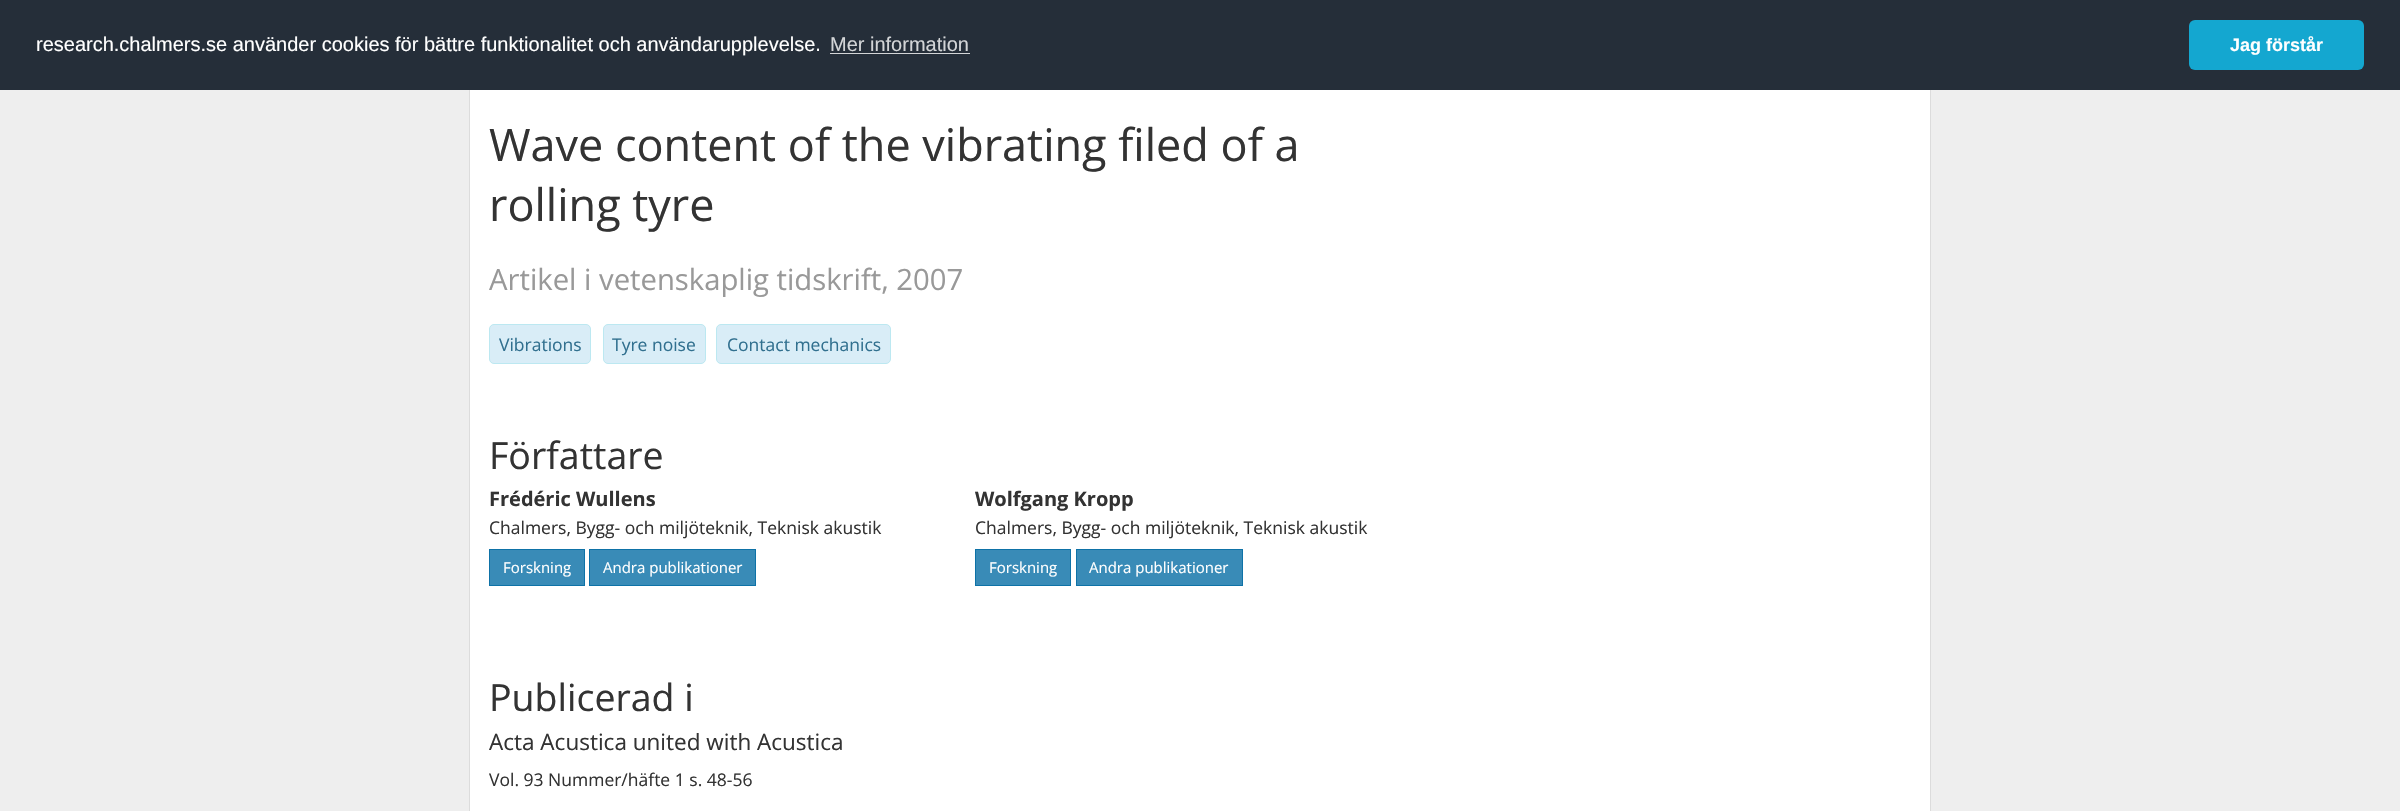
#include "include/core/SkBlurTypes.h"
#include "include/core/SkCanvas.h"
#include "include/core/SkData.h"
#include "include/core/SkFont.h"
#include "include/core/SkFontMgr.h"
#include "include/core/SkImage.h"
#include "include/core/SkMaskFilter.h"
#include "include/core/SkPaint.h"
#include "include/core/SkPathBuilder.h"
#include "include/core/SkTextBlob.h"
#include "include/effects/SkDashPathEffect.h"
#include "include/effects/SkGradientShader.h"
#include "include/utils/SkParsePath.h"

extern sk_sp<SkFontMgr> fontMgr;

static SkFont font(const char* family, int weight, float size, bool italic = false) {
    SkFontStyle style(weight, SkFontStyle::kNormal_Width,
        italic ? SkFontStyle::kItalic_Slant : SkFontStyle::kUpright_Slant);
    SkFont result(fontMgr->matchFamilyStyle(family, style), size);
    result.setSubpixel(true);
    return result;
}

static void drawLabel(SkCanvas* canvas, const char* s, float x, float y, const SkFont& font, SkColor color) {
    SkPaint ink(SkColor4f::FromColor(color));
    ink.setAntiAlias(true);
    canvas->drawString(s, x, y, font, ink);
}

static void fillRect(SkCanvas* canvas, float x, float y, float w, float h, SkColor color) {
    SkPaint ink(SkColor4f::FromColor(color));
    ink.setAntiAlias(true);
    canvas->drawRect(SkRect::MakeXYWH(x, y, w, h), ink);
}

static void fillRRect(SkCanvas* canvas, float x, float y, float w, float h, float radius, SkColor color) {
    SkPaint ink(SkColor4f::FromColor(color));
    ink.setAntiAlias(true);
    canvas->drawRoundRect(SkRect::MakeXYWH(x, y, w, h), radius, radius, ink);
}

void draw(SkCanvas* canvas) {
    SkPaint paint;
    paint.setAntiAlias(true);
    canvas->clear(0xFFEEEEEE);
    fillRect(canvas, 0, 0, 2400, 90, 0xFF252E39);
    SkFont font1 = font("Liberation Sans", 400, 20);
    drawLabel(canvas, "research.chalmers.se använder cookies för bättre funktionalitet och användarupplevelse.", 36, 51, font1, 0xFFFFFFFF);
    drawLabel(canvas, "Mer information", 830, 51, font1, 0xFFD3D5D7);
    fillRect(canvas, 830, 53, 140, 1, 0xFFD3D5D7);
    fillRRect(canvas, 2189, 20, 175, 50, 6, 0xFF14A7D0);
    SkFont font2 = font("Liberation Sans", 700, 18);
    drawLabel(canvas, "Jag förstår", 2230, 51, font2, 0xFFFFFFFF);
    fillRect(canvas, 470, 90, 1460, 721, 0xFFFFFFFF);
    fillRect(canvas, 1930, 90, 1, 721, 0xFFDCDCDC);
    fillRect(canvas, 469, 90, 1, 721, 0xFFDCDCDC);
    SkFont font3 = font("Open Sans", 400, 45);
    drawLabel(canvas, "Wave content of the vibrating filed of a", 489, 161, font3, 0xFF333333);
    drawLabel(canvas, "rolling tyre", 489, 221, font3, 0xFF333333);
    SkFont font4 = font("Open Sans", 400, 29.25f);
    drawLabel(canvas, "Artikel i vetenskaplig tidskrift, 2007", 489, 290, font4, 0xFF999999);
    paint.setColor(0xFFD9EDF7);
    canvas->drawRoundRect(SkRect::MakeXYWH(489.5f, 324.5f, 101, 39), 4.5f, 4.5f, paint);
    paint.setStroke(true);
    paint.setStrokeWidth(1);
    paint.setColor(0xFFBCE8F1);
    canvas->drawRoundRect(SkRect::MakeXYWH(489.5f, 324.5f, 101, 39), 4.5f, 4.5f, paint);
    SkFont font5 = font("Open Sans", 400, 17.5f);
    drawLabel(canvas, "Vibrations", 499, 351, font5, 0xFF31708F);
    paint.setStroke(false);
    paint.setColor(0xFFD9EDF7);
    canvas->drawRoundRect(SkRect::MakeXYWH(603.5f, 324.5f, 102, 39), 4.5f, 4.5f, paint);
    paint.setStroke(true);
    paint.setColor(0xFFBCE8F1);
    canvas->drawRoundRect(SkRect::MakeXYWH(603.5f, 324.5f, 102, 39), 4.5f, 4.5f, paint);
    drawLabel(canvas, "Tyre noise", 612, 351, font5, 0xFF31708F);
    paint.setStroke(false);
    paint.setColor(0xFFD9EDF7);
    canvas->drawRoundRect(SkRect::MakeXYWH(716.5f, 324.5f, 174, 39), 4.5f, 4.5f, paint);
    paint.setStroke(true);
    paint.setColor(0xFFBCE8F1);
    canvas->drawRoundRect(SkRect::MakeXYWH(716.5f, 324.5f, 174, 39), 4.5f, 4.5f, paint);
    drawLabel(canvas, "Contact mechanics", 727, 351, font5, 0xFF31708F);
    SkFont font6 = font("Open Sans", 400, 37.5f);
    drawLabel(canvas, "Författare", 489, 469, font6, 0xFF333333);
    SkFont font7 = font("Open Sans", 700, 20);
    drawLabel(canvas, "Frédéric Wullens", 489, 506, font7, 0xFF333333);
    drawLabel(canvas, "Chalmers, Bygg- och miljöteknik, Teknisk akustik", 489, 534, font5, 0xFF333333);
    paint.setStroke(false);
    paint.setColor(0xFF398BB7);
    canvas->drawRect(SkRect::MakeXYWH(489.5f, 549.5f, 95, 36), paint);
    paint.setStroke(true);
    paint.setColor(0xFF0E72A7);
    canvas->drawRect(SkRect::MakeXYWH(489.5f, 549.5f, 95, 36), paint);
    SkFont font8 = font("Open Sans", 400, 15);
    drawLabel(canvas, "Forskning", 503, 573, font8, 0xFFFFFFFF);
    paint.setStroke(false);
    paint.setColor(0xFF398BB7);
    canvas->drawRect(SkRect::MakeXYWH(589.5f, 549.5f, 166, 36), paint);
    paint.setStroke(true);
    paint.setColor(0xFF0E72A7);
    canvas->drawRect(SkRect::MakeXYWH(589.5f, 549.5f, 166, 36), paint);
    drawLabel(canvas, "Andra publikationer", 603, 573, font8, 0xFFFFFFFF);
    drawLabel(canvas, "Wolfgang Kropp", 975, 506, font7, 0xFF333333);
    drawLabel(canvas, "Chalmers, Bygg- och miljöteknik, Teknisk akustik", 975, 534, font5, 0xFF333333);
    paint.setStroke(false);
    paint.setColor(0xFF398BB7);
    canvas->drawRect(SkRect::MakeXYWH(975.5f, 549.5f, 95, 36), paint);
    paint.setStroke(true);
    paint.setColor(0xFF0E72A7);
    canvas->drawRect(SkRect::MakeXYWH(975.5f, 549.5f, 95, 36), paint);
    drawLabel(canvas, "Forskning", 989, 573, font8, 0xFFFFFFFF);
    paint.setStroke(false);
    paint.setColor(0xFF398BB7);
    canvas->drawRect(SkRect::MakeXYWH(1076.5f, 549.5f, 166, 36), paint);
    paint.setStroke(true);
    paint.setColor(0xFF0E72A7);
    canvas->drawRect(SkRect::MakeXYWH(1076.5f, 549.5f, 166, 36), paint);
    drawLabel(canvas, "Andra publikationer", 1089, 573, font8, 0xFFFFFFFF);
    drawLabel(canvas, "Publicerad i", 489, 711, font6, 0xFF333333);
    SkFont font9 = font("Open Sans", 400, 22.5f);
    drawLabel(canvas, "Acta Acustica united with Acustica", 489, 750, font9, 0xFF333333);
    drawLabel(canvas, "Vol. 93 Nummer/häfte 1 s. 48-56", 489, 786, font5, 0xFF333333);
}
